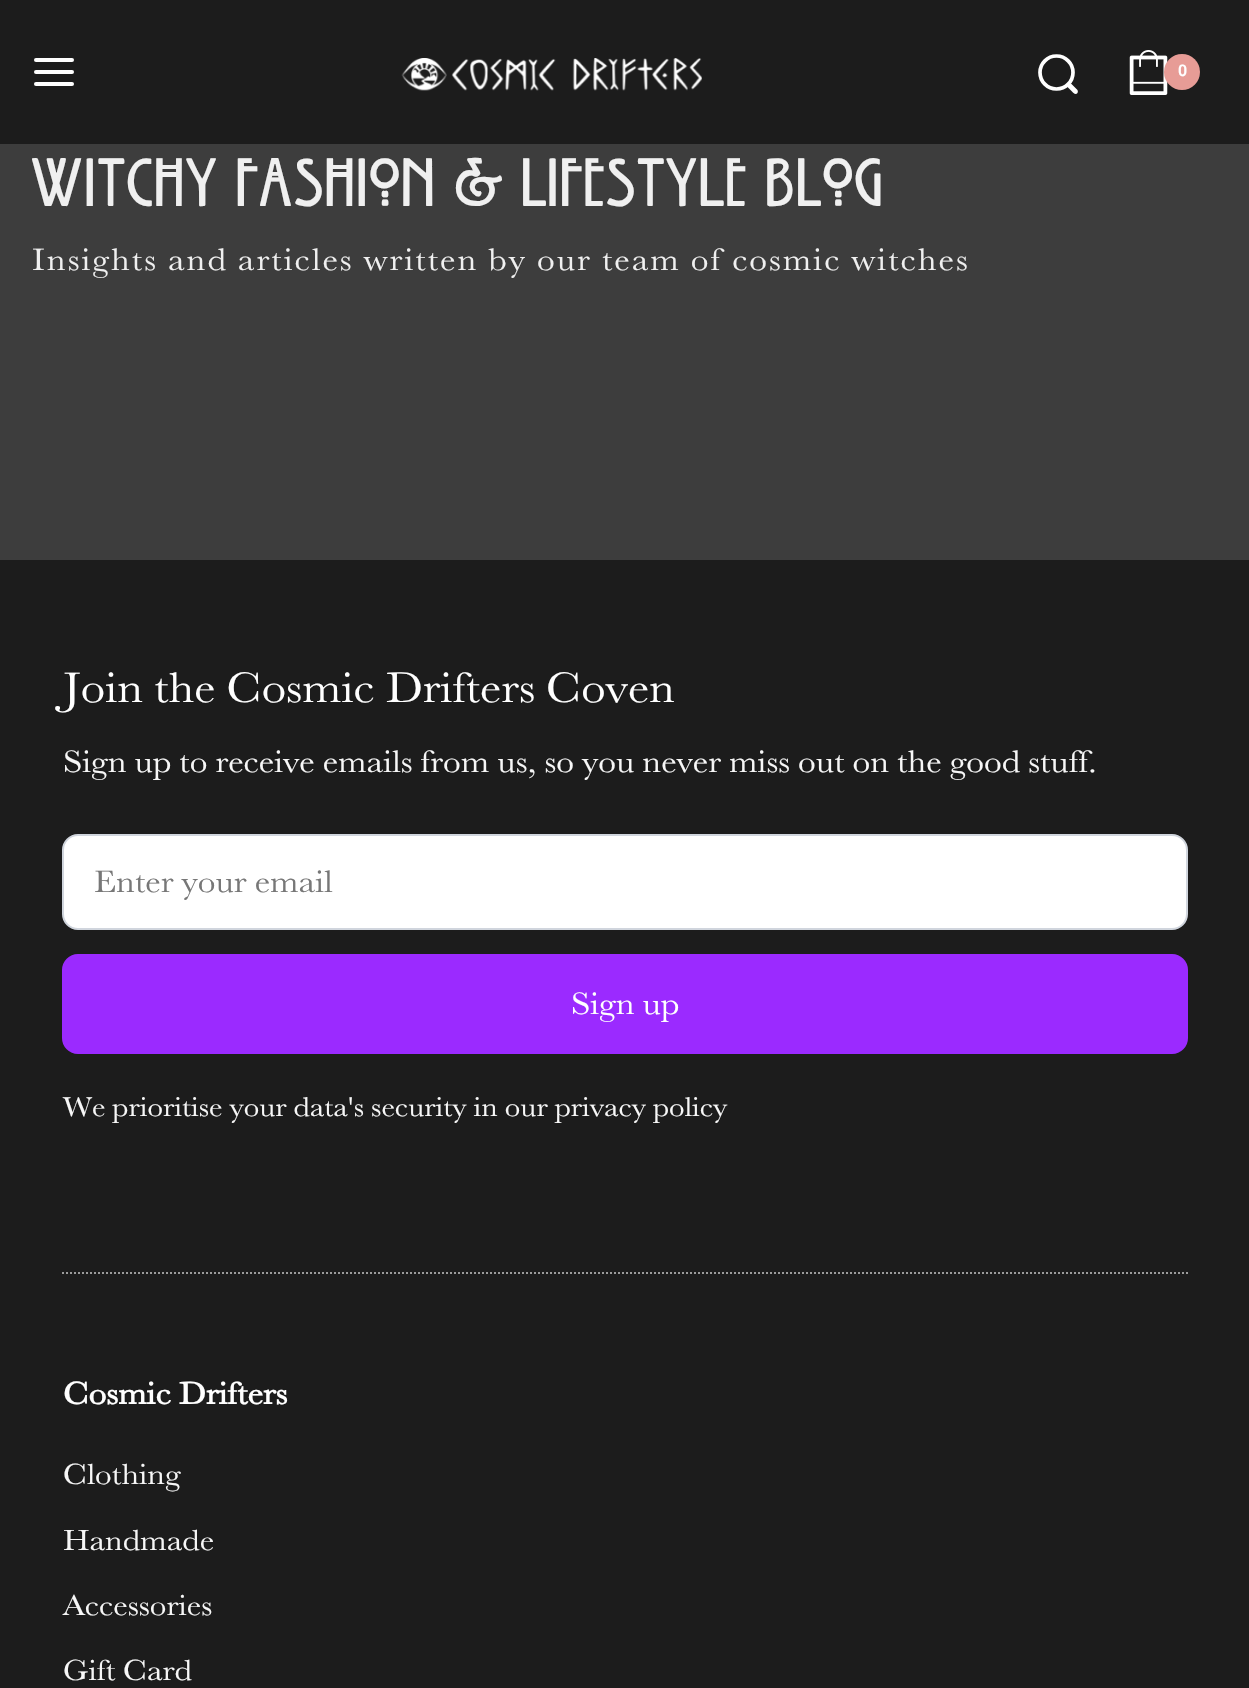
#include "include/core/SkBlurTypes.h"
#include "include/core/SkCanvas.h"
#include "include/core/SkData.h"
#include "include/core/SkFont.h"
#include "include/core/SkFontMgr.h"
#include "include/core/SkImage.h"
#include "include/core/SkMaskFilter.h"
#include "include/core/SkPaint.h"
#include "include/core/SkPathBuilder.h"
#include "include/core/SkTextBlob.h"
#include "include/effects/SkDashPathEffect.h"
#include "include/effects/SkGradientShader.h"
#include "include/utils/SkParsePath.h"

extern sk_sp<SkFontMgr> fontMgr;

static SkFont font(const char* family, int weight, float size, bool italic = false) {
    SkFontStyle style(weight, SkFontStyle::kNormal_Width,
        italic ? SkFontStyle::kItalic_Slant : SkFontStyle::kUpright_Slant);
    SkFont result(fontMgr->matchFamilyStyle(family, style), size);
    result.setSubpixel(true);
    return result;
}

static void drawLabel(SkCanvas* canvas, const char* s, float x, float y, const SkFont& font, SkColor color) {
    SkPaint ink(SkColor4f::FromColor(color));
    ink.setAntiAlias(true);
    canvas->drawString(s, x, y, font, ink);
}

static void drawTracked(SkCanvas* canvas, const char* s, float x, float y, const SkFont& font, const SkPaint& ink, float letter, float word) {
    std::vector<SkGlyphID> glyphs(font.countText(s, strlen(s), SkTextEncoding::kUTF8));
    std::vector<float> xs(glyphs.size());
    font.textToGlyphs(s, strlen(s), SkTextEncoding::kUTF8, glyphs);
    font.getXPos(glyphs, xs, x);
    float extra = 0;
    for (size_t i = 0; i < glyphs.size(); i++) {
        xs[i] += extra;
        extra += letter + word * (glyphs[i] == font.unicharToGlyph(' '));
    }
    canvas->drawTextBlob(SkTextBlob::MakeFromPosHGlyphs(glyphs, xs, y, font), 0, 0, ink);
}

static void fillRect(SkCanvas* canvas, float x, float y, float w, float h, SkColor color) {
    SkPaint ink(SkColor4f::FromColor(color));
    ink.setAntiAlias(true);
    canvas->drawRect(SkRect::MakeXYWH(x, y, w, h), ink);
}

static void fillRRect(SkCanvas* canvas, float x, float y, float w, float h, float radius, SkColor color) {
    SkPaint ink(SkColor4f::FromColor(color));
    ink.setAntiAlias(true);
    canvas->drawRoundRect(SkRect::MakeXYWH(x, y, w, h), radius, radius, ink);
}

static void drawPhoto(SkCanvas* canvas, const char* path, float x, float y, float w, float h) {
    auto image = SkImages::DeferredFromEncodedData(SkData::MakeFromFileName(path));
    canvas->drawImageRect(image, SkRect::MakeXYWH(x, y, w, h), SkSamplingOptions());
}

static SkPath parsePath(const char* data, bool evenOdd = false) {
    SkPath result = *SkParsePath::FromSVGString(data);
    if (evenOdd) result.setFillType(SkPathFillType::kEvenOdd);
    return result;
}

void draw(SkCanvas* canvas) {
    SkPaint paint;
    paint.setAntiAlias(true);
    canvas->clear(0xFF3D3D3D);
    fillRect(canvas, 0, 0, 1249, 144, 0xFF1C1C1C);
    fillRRect(canvas, 34, 58, 40, 4, 2, 0xFFFFFFFF);
    fillRRect(canvas, 34, 70, 40, 4, 2, 0xFFFFFFFF);
    fillRRect(canvas, 34, 82, 40, 4, 2, 0xFFFFFFFF);
    drawPhoto(canvas, "assets/img1.png", 401, 58, 301, 33);
    paint.setStroke(true);
    paint.setStrokeWidth(3.7f);
    paint.setColor(0xFFFFFFFF);
    canvas->drawCircle(1056.5f, 72.5f, 16.5f, paint);
    paint.setStroke(false);
    canvas->drawPath(parsePath("M1071.5 84L1077.5 90C1078 91 1078 92 1077.5 93C1075.5 95.5 1073 92.5 1072 91.5L1068 87.5C1065.5 85 1069 81.5 1071.5 84Z"), paint);
    drawPhoto(canvas, "assets/img2.png", 1129, 50, 39, 45);
    paint.setColor(0xFFE79C96);
    canvas->drawCircle(1182, 72, 18, paint);
    SkFont font1 = font("Roboto", 600, 16);
    drawLabel(canvas, "0", 1178, 76, font1, 0xFFFFFFFF);
    SkFont font2 = font("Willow", 500, 72);
    paint.setColor(0xFFF0F0F0);
    drawTracked(canvas, "Witchy Fashion & Lifestyle Blog", 32, 206, font2, paint, -0.55f, 0);
    SkFont font3 = font("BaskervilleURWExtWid", 400, 32);
    drawTracked(canvas, "Insights and articles written by our team of cosmic witches", 32, 270, font3, paint, 2, 0);
    fillRect(canvas, 0, 560, 1249, 1128, 0xFF1C1C1C);
    SkFont font4 = font("BaskervilleURWExtWid", 400, 44);
    drawLabel(canvas, "Join the Cosmic Drifters Coven", 63, 702, font4, 0xFFFFFFFF);
    drawLabel(canvas, "Sign up to receive emails from us, so you never miss out on the good stuff.", 63, 772, font3, 0xFFF7F7F7);
    paint.setColor(0xFFFFFFFF);
    canvas->drawRoundRect(SkRect::MakeXYWH(63, 835, 1124, 94), 15, 15, paint);
    paint.setStroke(true);
    paint.setStrokeWidth(2);
    paint.setColor(0xFFD0D5DD);
    canvas->drawRoundRect(SkRect::MakeXYWH(63, 835, 1124, 94), 15, 15, paint);
    drawLabel(canvas, "Enter your email", 94, 892, font3, 0xFF777777);
    paint.setStroke(false);
    paint.setColor(0xFF9B2AFF);
    canvas->drawRoundRect(SkRect::MakeXYWH(63, 955, 1124, 98), 15, 15, paint);
    paint.setStroke(true);
    canvas->drawRoundRect(SkRect::MakeXYWH(63, 955, 1124, 98), 15, 15, paint);
    drawLabel(canvas, "Sign up", 571, 1014, font3, 0xFFFFFFFF);
    SkFont font5 = font("BaskervilleURWExtWid", 400, 28);
    drawLabel(canvas, "We prioritise your data's security in our privacy policy", 63, 1116, font5, 0xFFF7F7F7);
    paint.setColor(0xFF9B9B9B);
    paint.setPathEffect(SkDashPathEffect::Make({{2, 2}}, 0));
    canvas->drawPath(parsePath("M62 1273H1188"), paint);
    paint.setPathEffect(nullptr);
    SkFont font6 = font("BaskervilleURWExtWid", 700, 32);
    drawLabel(canvas, "Cosmic Drifters", 63, 1404, font6, 0xFFFFFFFF);
    SkFont font7 = font("BaskervilleURWExtWid", 400, 30);
    drawLabel(canvas, "Clothing", 63, 1484, font7, 0xFFF7F7F7);
    drawLabel(canvas, "Handmade", 63, 1550, font7, 0xFFF7F7F7);
    drawLabel(canvas, "Accessories", 63, 1615, font7, 0xFFF7F7F7);
    drawLabel(canvas, "Gift Card", 63, 1680, font7, 0xFFF7F7F7);
}
